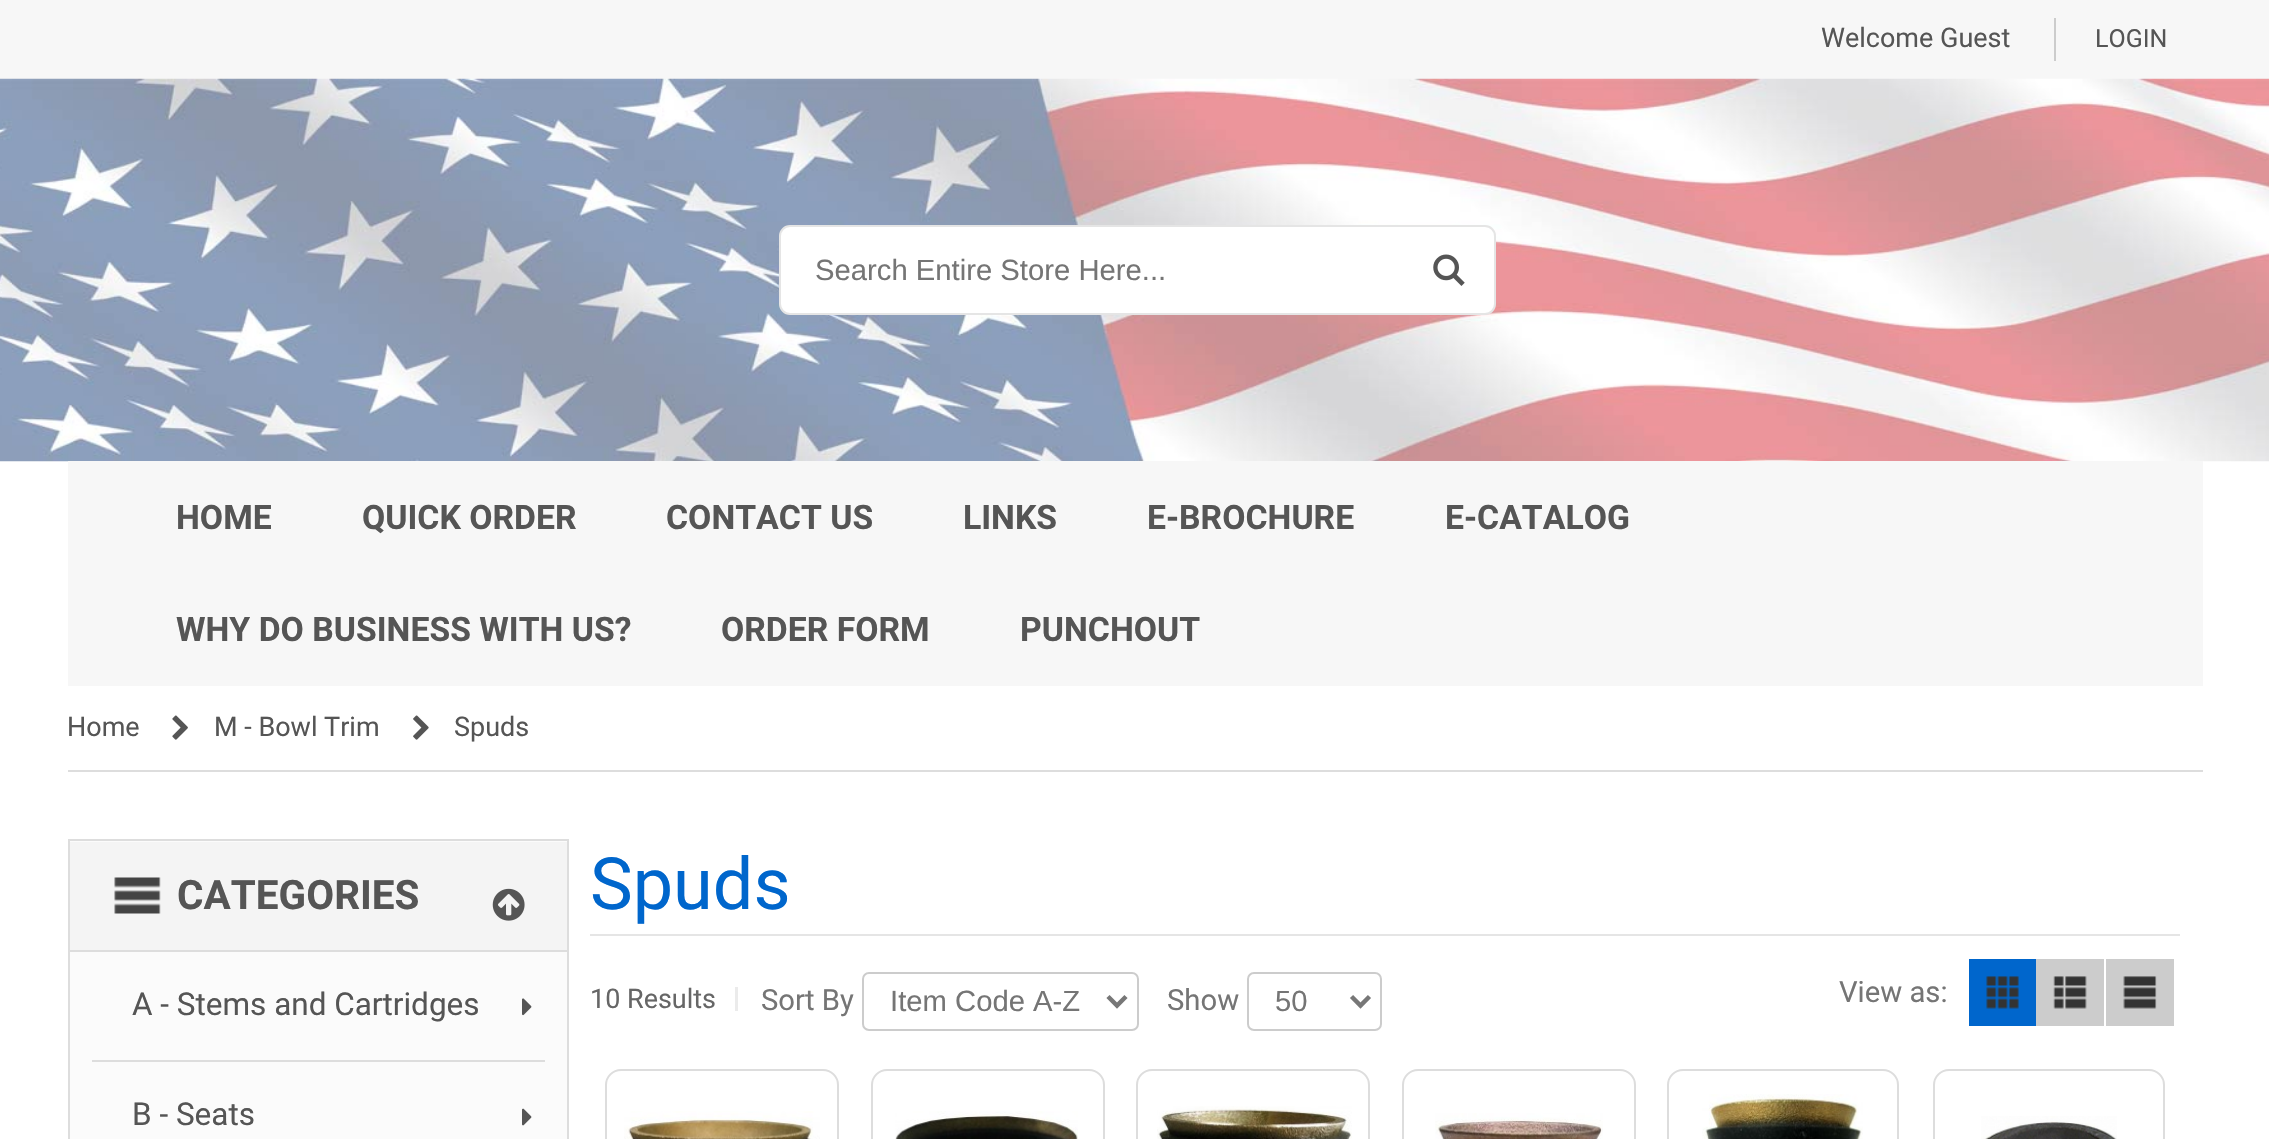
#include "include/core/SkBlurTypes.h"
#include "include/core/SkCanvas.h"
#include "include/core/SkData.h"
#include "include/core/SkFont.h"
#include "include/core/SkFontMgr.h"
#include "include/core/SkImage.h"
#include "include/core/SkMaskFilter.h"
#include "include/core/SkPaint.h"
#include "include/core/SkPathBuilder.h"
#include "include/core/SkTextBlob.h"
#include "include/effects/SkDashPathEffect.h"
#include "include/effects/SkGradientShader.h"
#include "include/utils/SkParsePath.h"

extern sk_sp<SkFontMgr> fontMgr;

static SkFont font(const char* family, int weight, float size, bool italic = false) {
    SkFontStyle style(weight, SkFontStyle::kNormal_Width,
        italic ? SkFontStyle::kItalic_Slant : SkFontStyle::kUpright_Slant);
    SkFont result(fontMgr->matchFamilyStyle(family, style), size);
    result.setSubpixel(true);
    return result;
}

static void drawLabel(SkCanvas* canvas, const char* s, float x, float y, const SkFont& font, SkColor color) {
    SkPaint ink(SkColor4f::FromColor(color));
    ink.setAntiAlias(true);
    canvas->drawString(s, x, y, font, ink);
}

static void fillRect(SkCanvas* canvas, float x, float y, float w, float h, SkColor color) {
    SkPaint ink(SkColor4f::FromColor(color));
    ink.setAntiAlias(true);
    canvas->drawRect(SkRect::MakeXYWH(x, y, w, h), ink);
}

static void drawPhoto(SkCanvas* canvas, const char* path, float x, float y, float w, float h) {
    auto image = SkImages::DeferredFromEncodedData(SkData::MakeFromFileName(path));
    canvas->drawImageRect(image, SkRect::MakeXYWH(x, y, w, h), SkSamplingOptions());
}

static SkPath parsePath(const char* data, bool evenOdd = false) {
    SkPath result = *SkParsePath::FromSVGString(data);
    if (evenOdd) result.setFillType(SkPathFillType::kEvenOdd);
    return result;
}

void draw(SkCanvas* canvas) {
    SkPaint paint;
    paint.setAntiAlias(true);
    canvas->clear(0xFFFFFFFF);
    fillRect(canvas, 0, 0, 2269, 79, 0xFFF7F7F7);
    SkFont font1 = font("Roboto", 400, 27);
    drawLabel(canvas, "Welcome Guest", 1821, 47, font1, 0xFF555555);
    fillRect(canvas, 2054, 18, 2, 43, 0xFFCCCCCC);
    SkFont font2 = font("Roboto", 400, 25);
    drawLabel(canvas, "LOGIN", 2095, 47, font2, 0xFF555555);
    drawPhoto(canvas, "assets/img1.png", 0, 78, 2269, 384);
    paint.setColor(0xFFFFFFFF);
    canvas->drawRoundRect(SkRect::MakeXYWH(780, 226, 715, 88), 10, 10, paint);
    paint.setStroke(true);
    paint.setStrokeWidth(2);
    paint.setColor(0xFFE5E5E5);
    canvas->drawRoundRect(SkRect::MakeXYWH(780, 226, 715, 88), 10, 10, paint);
    SkFont font3 = font("Liberation Sans", 400, 29.25f);
    drawLabel(canvas, "Search Entire Store Here...", 815, 280, font3, 0xFF757575);
    drawPhoto(canvas, "assets/img2.png", 1433, 254, 32, 32);
    fillRect(canvas, 68, 461, 2135, 225, 0xFFF7F7F7);
    SkFont font4 = font("Roboto", 700, 33.75f);
    drawLabel(canvas, "HOME", 176, 529, font4, 0xFF555555);
    drawLabel(canvas, "QUICK ORDER", 362, 529, font4, 0xFF555555);
    drawLabel(canvas, "CONTACT US", 666, 529, font4, 0xFF555555);
    drawLabel(canvas, "LINKS", 963, 529, font4, 0xFF555555);
    drawLabel(canvas, "E-BROCHURE", 1147, 529, font4, 0xFF555555);
    drawLabel(canvas, "E-CATALOG", 1445, 529, font4, 0xFF555555);
    drawLabel(canvas, "WHY DO BUSINESS WITH US?", 176, 641, font4, 0xFF555555);
    drawLabel(canvas, "ORDER FORM", 721, 641, font4, 0xFF555555);
    drawLabel(canvas, "PUNCHOUT", 1020, 641, font4, 0xFF555555);
    fillRect(canvas, 68, 770, 2135, 2, 0xFFDDDDDD);
    drawLabel(canvas, "Home", 67, 736, font1, 0xFF555555);
    drawPhoto(canvas, "assets/img3.png", 172, 715, 16, 25);
    drawLabel(canvas, "M - Bowl Trim", 214, 736, font1, 0xFF555555);
    drawPhoto(canvas, "assets/img4.png", 413, 715, 16, 25);
    drawLabel(canvas, "Spuds", 454, 736, font1, 0xFF555555);
    paint.setStroke(false);
    paint.setColor(0xFFFBFBFB);
    canvas->drawRect(SkRect::MakeXYWH(69, 840, 499, 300), paint);
    paint.setStroke(true);
    paint.setColor(0xFFDDDDDD);
    canvas->drawRect(SkRect::MakeXYWH(69, 840, 499, 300), paint);
    fillRect(canvas, 70, 842, 497, 108, 0xFFF4F4F4);
    drawPhoto(canvas, "assets/img5.png", 114, 877, 47, 37);
    fillRect(canvas, 70, 950, 497, 2, 0xFFDDDDDD);
    SkFont font5 = font("Roboto", 700, 40.5f);
    drawLabel(canvas, "CATEGORIES", 177, 909, font5, 0xFF555555);
    drawPhoto(canvas, "assets/img6.png", 492, 888, 33, 33);
    SkFont font6 = font("Roboto", 400, 31.5f);
    drawLabel(canvas, "A - Stems and Cartridges", 132, 1015, font6, 0xFF555555);
    drawPhoto(canvas, "assets/img7.png", 522, 998, 10, 18);
    fillRect(canvas, 92, 1060, 453, 2, 0xFFDDDDDD);
    drawLabel(canvas, "B - Seats", 132, 1125, font6, 0xFF555555);
    drawPhoto(canvas, "assets/img8.png", 522, 1108, 10, 18);
    fillRect(canvas, 590, 934, 1590, 2, 0xFFE5E5E5);
    SkFont font7 = font("Roboto", 400, 72);
    drawLabel(canvas, "Spuds", 590, 909, font7, 0xFF0066CC);
    fillRect(canvas, 735, 987, 3, 24, 0xFFEBEBEB);
    drawLabel(canvas, "10 Results", 590, 1008, font1, 0xFF666666);
    SkFont font8 = font("Roboto", 400, 29.25f);
    drawLabel(canvas, "Sort By", 761, 1010, font8, 0xFF757575);
    paint.setColor(0xFFCCCCCC);
    canvas->drawRoundRect(SkRect::MakeXYWH(863, 973, 275, 57), 6, 6, paint);
    paint.setStrokeWidth(4.5f);
    paint.setColor(0xFF777777);
    canvas->drawPath(parsePath("M1108 996.5L1117 1005.5L1126 996.5"), paint);
    drawLabel(canvas, "Item Code A-Z", 890, 1011, font3, 0xFF757575);
    drawLabel(canvas, "Show", 1167, 1010, font8, 0xFF757575);
    paint.setStrokeWidth(2);
    paint.setColor(0xFFCCCCCC);
    canvas->drawRoundRect(SkRect::MakeXYWH(1248, 973, 133, 57), 6, 6, paint);
    paint.setStrokeWidth(4.5f);
    paint.setColor(0xFF777777);
    canvas->drawPath(parsePath("M1351.5 996.5L1360.5 1005.5L1369.5 996.5"), paint);
    drawLabel(canvas, "50", 1275, 1011, font3, 0xFF757575);
    drawLabel(canvas, "View as:", 1839, 1002, font8, 0xFF757575);
    fillRect(canvas, 1969, 959, 67, 67, 0xFF0066CC);
    drawPhoto(canvas, "assets/img9.png", 1986, 976, 33, 33);
    fillRect(canvas, 2036, 959, 68, 67, 0xFFCCCCCC);
    drawPhoto(canvas, "assets/img10.png", 2053, 976, 34, 33);
    fillRect(canvas, 2106, 959, 68, 67, 0xFFCCCCCC);
    drawPhoto(canvas, "assets/img11.png", 2123, 976, 34, 33);
    paint.setStrokeWidth(2);
    paint.setColor(0xFFDDDDDD);
    canvas->drawRoundRect(SkRect::MakeXYWH(606, 1070, 232, 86), 15, 15, paint);
    drawPhoto(canvas, "assets/img12.png", 624, 1111, 196, 28);
    canvas->drawRoundRect(SkRect::MakeXYWH(872, 1070, 232, 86), 15, 15, paint);
    drawPhoto(canvas, "assets/img13.png", 895, 1111, 183, 28);
    canvas->drawRoundRect(SkRect::MakeXYWH(1137, 1070, 232, 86), 15, 15, paint);
    drawPhoto(canvas, "assets/img14.png", 1157, 1106, 195, 33);
    canvas->drawRoundRect(SkRect::MakeXYWH(1403, 1070, 232, 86), 15, 15, paint);
    drawPhoto(canvas, "assets/img15.png", 1435, 1113, 168, 26);
    canvas->drawRoundRect(SkRect::MakeXYWH(1668, 1070, 230, 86), 15, 15, paint);
    drawPhoto(canvas, "assets/img16.png", 1702, 1094, 161, 45);
    canvas->drawRoundRect(SkRect::MakeXYWH(1934, 1070, 230, 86), 15, 15, paint);
    drawPhoto(canvas, "assets/img17.png", 1981, 1116, 136, 23);
}
